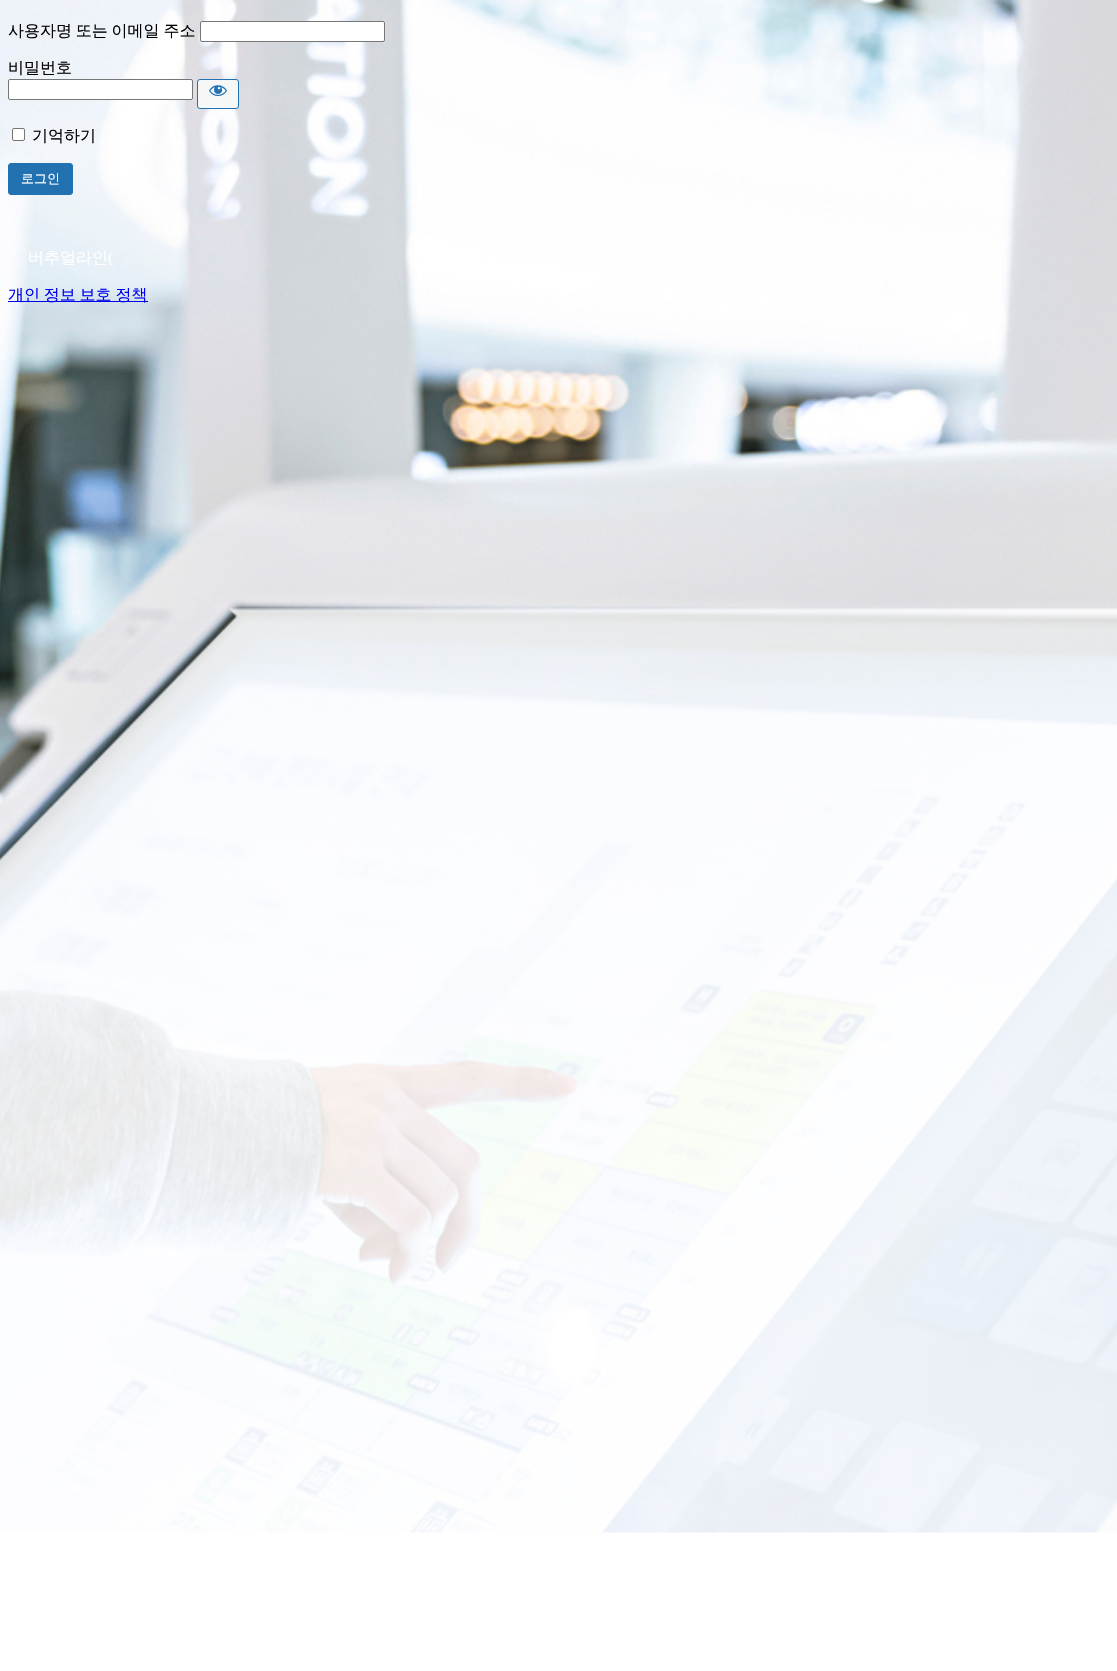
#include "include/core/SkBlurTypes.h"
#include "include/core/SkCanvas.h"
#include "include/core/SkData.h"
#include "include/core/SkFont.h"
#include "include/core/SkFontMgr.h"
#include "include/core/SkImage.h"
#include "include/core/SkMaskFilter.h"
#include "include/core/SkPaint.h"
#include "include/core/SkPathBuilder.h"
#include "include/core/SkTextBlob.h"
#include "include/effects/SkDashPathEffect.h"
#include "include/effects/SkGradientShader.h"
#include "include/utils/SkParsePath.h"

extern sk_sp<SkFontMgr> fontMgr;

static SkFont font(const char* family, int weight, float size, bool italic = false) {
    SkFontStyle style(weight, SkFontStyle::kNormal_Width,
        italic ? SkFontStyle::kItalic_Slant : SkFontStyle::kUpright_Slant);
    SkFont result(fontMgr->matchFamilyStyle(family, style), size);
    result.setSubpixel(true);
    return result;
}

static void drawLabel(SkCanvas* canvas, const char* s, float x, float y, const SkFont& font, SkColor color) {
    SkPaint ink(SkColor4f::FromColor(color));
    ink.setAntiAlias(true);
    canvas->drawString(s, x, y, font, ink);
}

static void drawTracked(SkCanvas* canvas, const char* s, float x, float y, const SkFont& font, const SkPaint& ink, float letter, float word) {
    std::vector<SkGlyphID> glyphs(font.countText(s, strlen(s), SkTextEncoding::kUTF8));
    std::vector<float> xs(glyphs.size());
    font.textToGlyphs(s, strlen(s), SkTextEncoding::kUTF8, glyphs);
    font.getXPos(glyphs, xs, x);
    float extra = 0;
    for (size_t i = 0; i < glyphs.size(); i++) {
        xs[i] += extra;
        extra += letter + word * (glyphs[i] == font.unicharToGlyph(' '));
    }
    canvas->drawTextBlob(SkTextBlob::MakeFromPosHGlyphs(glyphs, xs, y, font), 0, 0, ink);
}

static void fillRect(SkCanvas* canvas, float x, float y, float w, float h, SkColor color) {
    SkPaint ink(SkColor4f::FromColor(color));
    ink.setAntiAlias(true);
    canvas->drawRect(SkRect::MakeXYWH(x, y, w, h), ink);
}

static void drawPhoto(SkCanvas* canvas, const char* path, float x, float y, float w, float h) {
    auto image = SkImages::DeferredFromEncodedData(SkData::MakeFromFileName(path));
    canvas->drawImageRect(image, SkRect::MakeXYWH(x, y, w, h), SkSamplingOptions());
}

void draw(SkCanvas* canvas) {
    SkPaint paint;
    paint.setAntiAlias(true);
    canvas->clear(0xFFFFFFFF);
    drawPhoto(canvas, "assets/img1.png", 0, 0, 1117, 1533);
    SkFont font1 = font("WenQuanYi Zen Hei", 500, 16);
    paint.setColor(0xFF000000);
    drawTracked(canvas, "사용자명 또는 이메일 주소", 8, 36, font1, paint, 0, -1);
    paint.setColor(0xFFFFFFFF);
    canvas->drawRoundRect(SkRect::MakeXYWH(200.5f, 21.5f, 184, 20), 1.5f, 1.5f, paint);
    paint.setStroke(true);
    paint.setStrokeWidth(1);
    paint.setColor(0xFF767676);
    canvas->drawRoundRect(SkRect::MakeXYWH(200.5f, 21.5f, 184, 20), 1.5f, 1.5f, paint);
    drawLabel(canvas, "비밀번호", 8, 73, font1, 0xFF000000);
    paint.setStroke(false);
    paint.setColor(0xFFFFFFFF);
    canvas->drawRoundRect(SkRect::MakeXYWH(8.5f, 79.5f, 184, 20), 1.5f, 1.5f, paint);
    paint.setStroke(true);
    paint.setColor(0xFF767676);
    canvas->drawRoundRect(SkRect::MakeXYWH(8.5f, 79.5f, 184, 20), 1.5f, 1.5f, paint);
    paint.setStroke(false);
    paint.setColor(0xFFF6F7F7);
    canvas->drawRoundRect(SkRect::MakeXYWH(197.5f, 79.5f, 41, 29), 2.5f, 2.5f, paint);
    paint.setStroke(true);
    paint.setColor(0xFF2271B1);
    canvas->drawRoundRect(SkRect::MakeXYWH(197.5f, 79.5f, 41, 29), 2.5f, 2.5f, paint);
    drawPhoto(canvas, "assets/img2.png", 209, 85, 18, 12);
    paint.setStroke(false);
    paint.setColor(0xFFFFFFFF);
    canvas->drawRoundRect(SkRect::MakeXYWH(12.5f, 128.5f, 12, 12), 1.5f, 1.5f, paint);
    paint.setStroke(true);
    paint.setColor(0xFF767676);
    canvas->drawRoundRect(SkRect::MakeXYWH(12.5f, 128.5f, 12, 12), 1.5f, 1.5f, paint);
    drawLabel(canvas, "기억하기", 32, 141, font1, 0xFF000000);
    paint.setStroke(false);
    paint.setColor(0xFF2271B1);
    canvas->drawRoundRect(SkRect::MakeXYWH(8.5f, 163.5f, 64, 31), 2.5f, 2.5f, paint);
    paint.setStroke(true);
    canvas->drawRoundRect(SkRect::MakeXYWH(8.5f, 163.5f, 64, 31), 2.5f, 2.5f, paint);
    SkFont font2 = font("WenQuanYi Zen Hei", 500, 13);
    drawLabel(canvas, "로그인", 21, 183, font2, 0xFFFFFFFF);
    drawLabel(canvas, "버추얼라인", 28, 263, font1, 0xFFFFFFFF);
    SkFont font3 = font("Liberation Serif", 400, 16);
    drawLabel(canvas, "(", 108, 263, font3, 0xFFFFFFFF);
    fillRect(canvas, 8, 301, 140, 1, 0xFF0000EE);
    paint.setStroke(false);
    paint.setColor(0xFF0000EE);
    drawTracked(canvas, "개인 정보 보호 정책", 8, 300, font1, paint, 0, -1);
}
